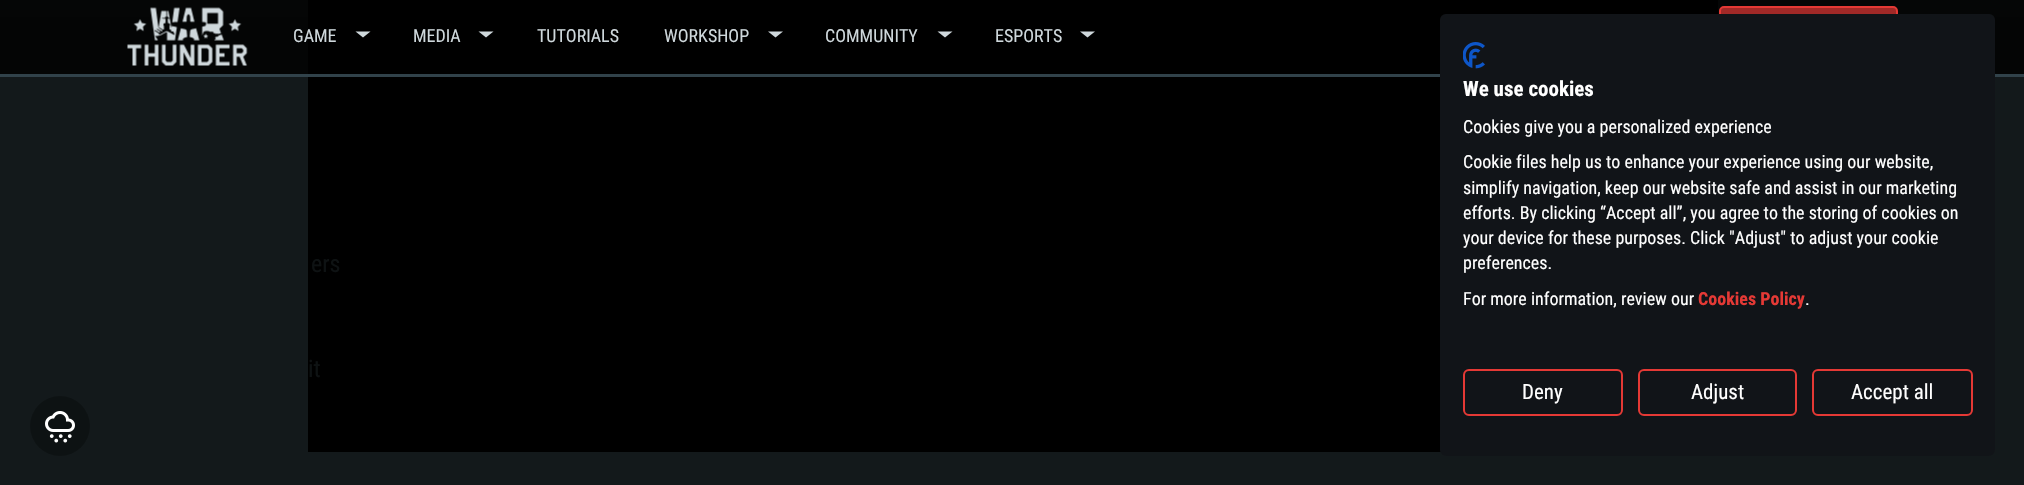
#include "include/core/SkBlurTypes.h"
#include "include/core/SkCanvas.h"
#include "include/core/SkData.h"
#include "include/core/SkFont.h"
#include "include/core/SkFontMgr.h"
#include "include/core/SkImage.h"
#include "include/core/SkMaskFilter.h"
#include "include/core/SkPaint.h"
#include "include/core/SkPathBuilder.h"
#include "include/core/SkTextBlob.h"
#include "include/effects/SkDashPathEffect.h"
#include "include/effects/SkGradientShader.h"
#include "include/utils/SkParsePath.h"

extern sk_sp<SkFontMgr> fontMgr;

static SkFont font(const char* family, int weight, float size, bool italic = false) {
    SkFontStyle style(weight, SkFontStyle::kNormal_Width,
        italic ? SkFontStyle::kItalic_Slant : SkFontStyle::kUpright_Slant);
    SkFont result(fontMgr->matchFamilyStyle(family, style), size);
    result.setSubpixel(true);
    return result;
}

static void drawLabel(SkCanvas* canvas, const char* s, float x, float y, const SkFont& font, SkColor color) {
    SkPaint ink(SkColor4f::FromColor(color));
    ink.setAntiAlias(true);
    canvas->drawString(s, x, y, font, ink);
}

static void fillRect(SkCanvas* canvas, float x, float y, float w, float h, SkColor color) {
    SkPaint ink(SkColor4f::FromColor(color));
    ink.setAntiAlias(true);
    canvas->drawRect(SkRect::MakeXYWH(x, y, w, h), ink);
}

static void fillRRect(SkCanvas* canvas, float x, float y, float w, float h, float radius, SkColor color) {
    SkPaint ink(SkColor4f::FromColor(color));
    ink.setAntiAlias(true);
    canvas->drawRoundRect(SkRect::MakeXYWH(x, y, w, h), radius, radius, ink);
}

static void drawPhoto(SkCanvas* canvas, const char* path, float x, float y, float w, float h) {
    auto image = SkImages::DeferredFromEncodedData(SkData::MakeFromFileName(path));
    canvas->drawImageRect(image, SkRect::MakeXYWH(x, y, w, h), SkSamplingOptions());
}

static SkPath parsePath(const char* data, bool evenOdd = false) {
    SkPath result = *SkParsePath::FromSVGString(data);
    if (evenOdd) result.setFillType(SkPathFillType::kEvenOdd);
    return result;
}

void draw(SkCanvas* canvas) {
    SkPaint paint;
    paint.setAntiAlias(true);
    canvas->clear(0xFF13191B);
    fillRect(canvas, 0, 0, 2024, 74, 0xFF040505);
    drawPhoto(canvas, "assets/img1.png", 0, 0, 2024, 17);
    {
        const SkColor colors[] = {0x00040505, 0xFF040505};
        const float stops[] = {0, 1};
        const SkPoint ends[] = {{1013, -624}, {1013, 21}};
        paint.setShader(SkGradientShader::MakeLinear(ends, colors, stops, 2, SkTileMode::kClamp));
        paint.setAlpha(255);
    }
    canvas->drawRect(SkRect::MakeXYWH(0, 0, 2024, 17), paint);
    fillRect(canvas, 308, 77, 1133, 375, 0xFF000000);
    fillRect(canvas, 308, 0, 1410, 74, 0xFF000000);
    drawPhoto(canvas, "assets/img2.png", 127, 7, 121, 59);
    SkFont font1 = font("Roboto Condensed", 400, 18);
    drawLabel(canvas, "GAME", 293, 42, font1, 0xFFCFD8DC);
    paint.setShader(nullptr);
    paint.setColor(0xFFCFD8DC);
    canvas->drawPath(parsePath("M355.5 31.5H370.5L363 37.5Z"), paint);
    paint.setColor(0xFFA12927);
    canvas->drawRoundRect(SkRect::MakeXYWH(1720, 7, 177, 58), 4, 4, paint);
    paint.setStroke(true);
    paint.setStrokeWidth(2);
    paint.setColor(0xFFE53935);
    canvas->drawRoundRect(SkRect::MakeXYWH(1720, 7, 177, 58), 4, 4, paint);
    drawLabel(canvas, "MEDIA", 413, 42, font1, 0xFFCFD8DC);
    paint.setStroke(false);
    paint.setColor(0xFFCFD8DC);
    canvas->drawPath(parsePath("M478.5 31.5H493.5L486 37.5Z"), paint);
    SkFont font2 = font("Roboto Condensed", 400, 24);
    drawLabel(canvas, "ers", 311, 272, font2, 0xFF0E1213);
    drawLabel(canvas, "it", 308, 377, font2, 0xFF0E1213);
    drawLabel(canvas, "TUTORIALS", 537, 42, font1, 0xFFCFD8DC);
    drawLabel(canvas, "WORKSHOP", 664, 42, font1, 0xFFCFD8DC);
    canvas->drawPath(parsePath("M768 31.5H783L775.5 37.5Z"), paint);
    drawLabel(canvas, "COMMUNITY", 825, 42, font1, 0xFFCFD8DC);
    canvas->drawPath(parsePath("M937.5 31.5H952.5L945 37.5Z"), paint);
    drawLabel(canvas, "ESPORTS", 995, 42, font1, 0xFFCFD8DC);
    canvas->drawPath(parsePath("M1080 31.5H1095L1087.5 37.5Z"), paint);
    fillRect(canvas, 0, 74, 2024, 3, 0xFF31424A);
    fillRRect(canvas, 1440, 14, 555, 442, 6, 0xFF111418);
    drawPhoto(canvas, "assets/img3.png", 1463, 42, 22, 27);
    SkFont font3 = font("Roboto Condensed", 700, 21);
    drawLabel(canvas, "We use cookies", 1463, 96, font3, 0xFFFFFFFF);
    drawLabel(canvas, "Cookies give you a personalized experience", 1463, 133, font1, 0xFFFFFFFF);
    drawLabel(canvas, "Сookie files help us to enhance your experience using our website,", 1463, 168, font1, 0xFFFFFFFF);
    drawLabel(canvas, "simplify navigation, keep our website safe and assist in our marketing", 1463, 194, font1, 0xFFFFFFFF);
    drawLabel(canvas, "efforts. By clicking “Accept all”, you agree to the storing of cookies on", 1463, 219, font1, 0xFFFFFFFF);
    drawLabel(canvas, "your device for these purposes. Click \"Adjust\" to adjust your cookie", 1463, 244, font1, 0xFFFFFFFF);
    drawLabel(canvas, "preferences.", 1463, 269, font1, 0xFFFFFFFF);
    drawLabel(canvas, "For more information, review our", 1463, 305, font1, 0xFFFFFFFF);
    SkFont font4 = font("Roboto Condensed", 700, 18);
    drawLabel(canvas, "Cookies Policy", 1698, 305, font4, 0xFFE53935);
    drawLabel(canvas, ".", 1805, 305, font1, 0xFFFFFFFF);
    paint.setStroke(true);
    paint.setColor(0xFFE53935);
    canvas->drawRoundRect(SkRect::MakeXYWH(1464, 370, 158, 45), 5, 5, paint);
    SkFont font5 = font("Roboto Condensed", 400, 21);
    drawLabel(canvas, "Deny", 1522, 399, font5, 0xFFFFFFFF);
    canvas->drawRoundRect(SkRect::MakeXYWH(1639, 370, 157, 45), 5, 5, paint);
    drawLabel(canvas, "Adjust", 1691, 399, font5, 0xFFFFFFFF);
    canvas->drawRoundRect(SkRect::MakeXYWH(1813, 370, 159, 45), 5, 5, paint);
    drawLabel(canvas, "Accept all", 1851, 399, font5, 0xFFFFFFFF);
    paint.setStroke(false);
    paint.setColor(0xFF0D1213);
    canvas->drawCircle(60, 426, 30, paint);
    drawPhoto(canvas, "assets/img4.png", 45, 411, 30, 32);
}
